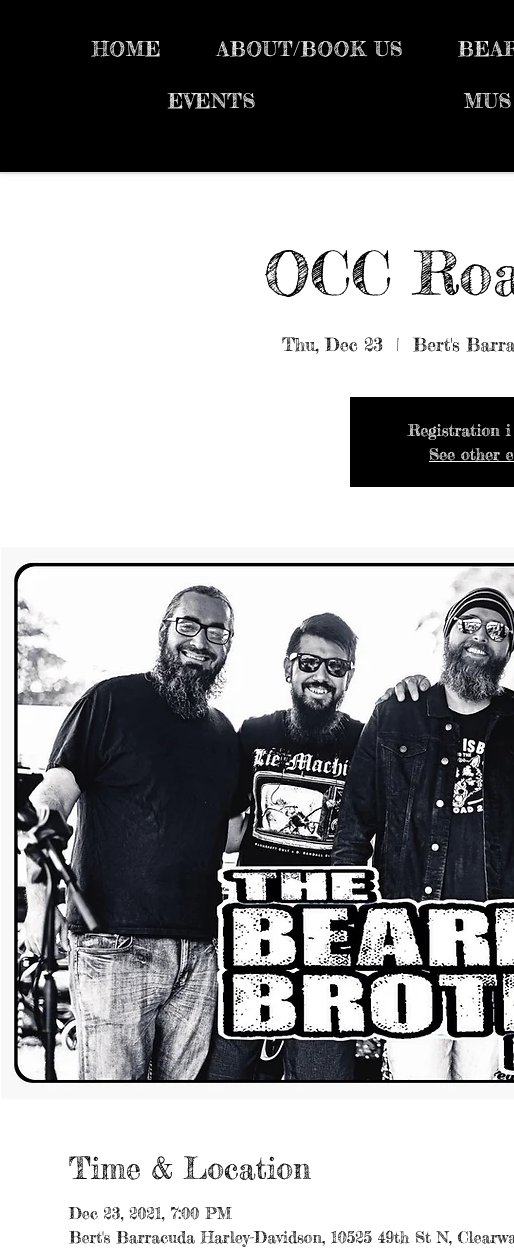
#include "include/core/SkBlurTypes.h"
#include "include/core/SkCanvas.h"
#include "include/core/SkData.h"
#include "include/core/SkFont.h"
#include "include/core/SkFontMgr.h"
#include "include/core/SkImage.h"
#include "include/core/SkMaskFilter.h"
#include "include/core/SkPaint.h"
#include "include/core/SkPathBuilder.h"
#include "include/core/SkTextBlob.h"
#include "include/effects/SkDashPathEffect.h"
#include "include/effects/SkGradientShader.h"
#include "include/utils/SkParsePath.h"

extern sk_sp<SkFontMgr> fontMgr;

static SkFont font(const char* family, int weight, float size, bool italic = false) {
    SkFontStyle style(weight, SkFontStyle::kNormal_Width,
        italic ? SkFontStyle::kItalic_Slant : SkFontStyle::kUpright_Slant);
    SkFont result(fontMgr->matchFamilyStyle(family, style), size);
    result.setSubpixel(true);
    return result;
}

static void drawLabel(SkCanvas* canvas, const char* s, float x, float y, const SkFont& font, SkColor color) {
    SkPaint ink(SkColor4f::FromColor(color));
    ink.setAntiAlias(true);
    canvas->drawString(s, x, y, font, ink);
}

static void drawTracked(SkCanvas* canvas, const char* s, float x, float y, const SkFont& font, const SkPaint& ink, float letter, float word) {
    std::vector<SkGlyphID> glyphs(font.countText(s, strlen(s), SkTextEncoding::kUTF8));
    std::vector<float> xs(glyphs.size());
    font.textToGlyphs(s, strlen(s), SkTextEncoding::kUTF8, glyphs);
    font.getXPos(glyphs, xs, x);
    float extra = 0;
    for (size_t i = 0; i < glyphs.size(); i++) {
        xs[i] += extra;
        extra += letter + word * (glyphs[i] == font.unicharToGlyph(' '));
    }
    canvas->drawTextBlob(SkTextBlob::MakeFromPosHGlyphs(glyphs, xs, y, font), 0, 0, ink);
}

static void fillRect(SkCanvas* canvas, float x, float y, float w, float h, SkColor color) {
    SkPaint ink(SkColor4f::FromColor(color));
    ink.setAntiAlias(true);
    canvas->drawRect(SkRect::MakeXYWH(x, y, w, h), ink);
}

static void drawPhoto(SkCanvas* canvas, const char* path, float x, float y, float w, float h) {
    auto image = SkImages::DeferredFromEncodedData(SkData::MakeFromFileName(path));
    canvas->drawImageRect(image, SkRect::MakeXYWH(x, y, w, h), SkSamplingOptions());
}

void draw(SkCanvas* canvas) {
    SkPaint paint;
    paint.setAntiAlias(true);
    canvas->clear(0xFFFFFFFF);
    paint.setColor(0xB3DFDFDF);
    paint.setMaskFilter(SkMaskFilter::MakeBlur(kNormal_SkBlurStyle, 2.5f));
    canvas->drawRect(SkRect::MakeXYWH(0, 0, 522, 174), paint);
    paint.setMaskFilter(nullptr);
    fillRect(canvas, 0, 0, 514, 172, 0xFF000000);
    fillRect(canvas, 0, 172, 514, 2, 0xFFDFDFDF);
    SkFont font1 = font("Fredericka the Great", 400, 20);
    paint.setColor(0xFFFFFFFF);
    drawTracked(canvas, "HOME", 92, 56, font1, paint, 1, 0);
    drawTracked(canvas, "ABOUT/BOOK US", 217, 56, font1, paint, 1, 0);
    drawTracked(canvas, "BEAR", 458, 56, font1, paint, 1, 0);
    drawTracked(canvas, "EVENTS", 168, 108, font1, paint, 1, 0);
    drawTracked(canvas, "MUS", 464, 108, font1, paint, 1, 0);
    SkFont font2 = font("Fredericka the Great", 400, 60);
    drawLabel(canvas, "OCC Roa", 264, 295, font2, 0xFF000000);
    SkFont font3 = font("Fredericka the Great", 400, 18);
    drawLabel(canvas, "Thu, Dec 23", 282, 351, font3, 0xFF000000);
    drawLabel(canvas, "|", 396, 351, font3, 0xFF000000);
    drawLabel(canvas, "Bert's Barra", 413, 351, font3, 0xFF000000);
    fillRect(canvas, 350, 397, 164, 90, 0xFF000000);
    SkFont font4 = font("Fredericka the Great", 400, 16);
    drawLabel(canvas, "Registration i", 408, 436, font4, 0xFFFFFFFF);
    drawLabel(canvas, "See other e", 429, 460, font4, 0xFFFFFFFF);
    fillRect(canvas, 429, 461, 85, 1, 0xFFFFFFFF);
    drawPhoto(canvas, "assets/img1.png", 1, 547, 513, 552);
    SkFont font5 = font("Fredericka the Great", 400, 30);
    drawLabel(canvas, "Time & Location", 69, 1179, font5, 0xFF000000);
    drawLabel(canvas, "Dec 23, 2021, 7:00 PM", 69, 1219, font4, 0xFF000000);
    drawLabel(canvas, "Bert's Barracuda Harley-Davidson, 10525 49th St N, Clearwa", 69, 1243, font4, 0xFF000000);
}
